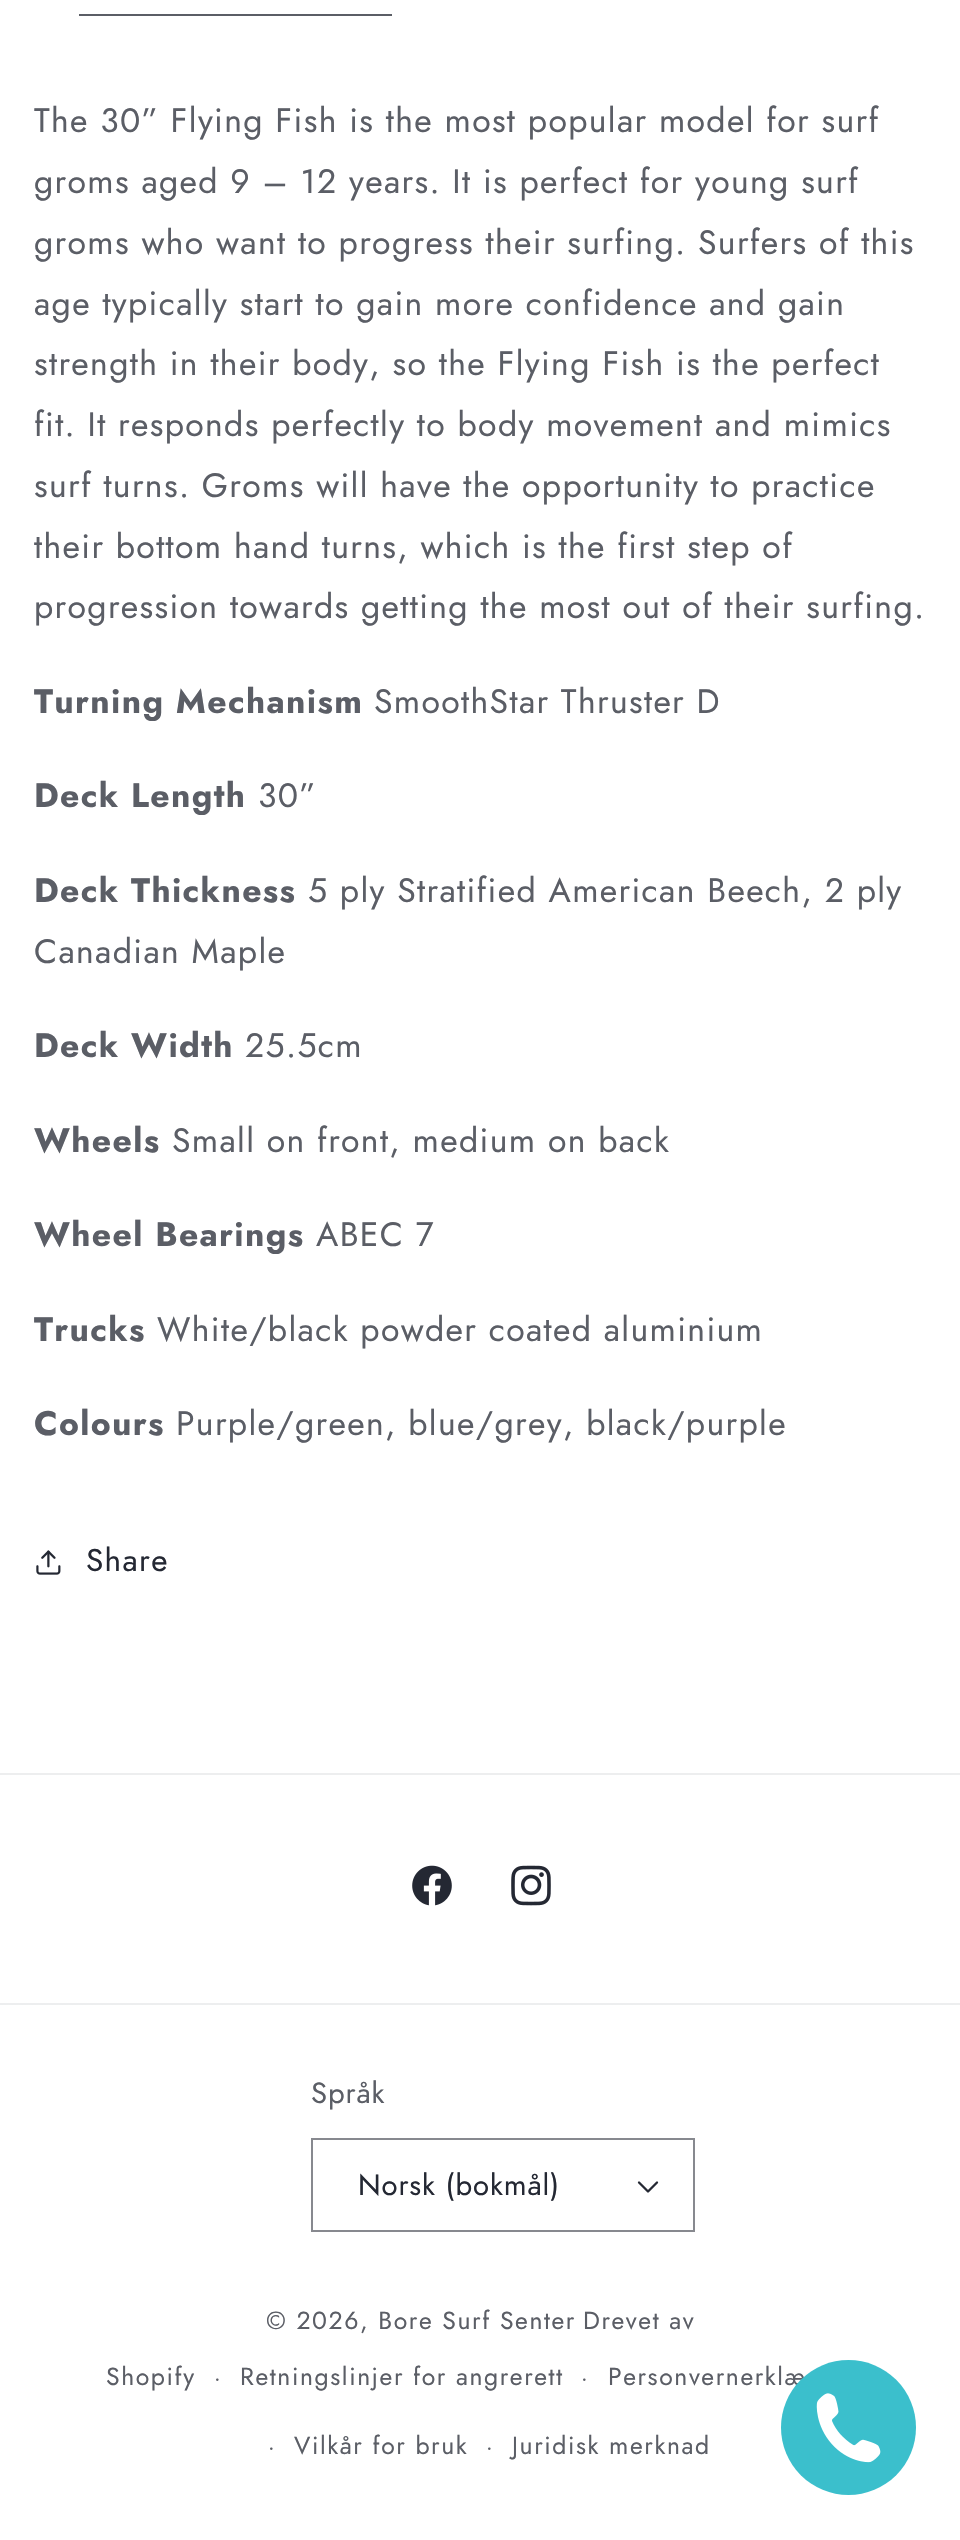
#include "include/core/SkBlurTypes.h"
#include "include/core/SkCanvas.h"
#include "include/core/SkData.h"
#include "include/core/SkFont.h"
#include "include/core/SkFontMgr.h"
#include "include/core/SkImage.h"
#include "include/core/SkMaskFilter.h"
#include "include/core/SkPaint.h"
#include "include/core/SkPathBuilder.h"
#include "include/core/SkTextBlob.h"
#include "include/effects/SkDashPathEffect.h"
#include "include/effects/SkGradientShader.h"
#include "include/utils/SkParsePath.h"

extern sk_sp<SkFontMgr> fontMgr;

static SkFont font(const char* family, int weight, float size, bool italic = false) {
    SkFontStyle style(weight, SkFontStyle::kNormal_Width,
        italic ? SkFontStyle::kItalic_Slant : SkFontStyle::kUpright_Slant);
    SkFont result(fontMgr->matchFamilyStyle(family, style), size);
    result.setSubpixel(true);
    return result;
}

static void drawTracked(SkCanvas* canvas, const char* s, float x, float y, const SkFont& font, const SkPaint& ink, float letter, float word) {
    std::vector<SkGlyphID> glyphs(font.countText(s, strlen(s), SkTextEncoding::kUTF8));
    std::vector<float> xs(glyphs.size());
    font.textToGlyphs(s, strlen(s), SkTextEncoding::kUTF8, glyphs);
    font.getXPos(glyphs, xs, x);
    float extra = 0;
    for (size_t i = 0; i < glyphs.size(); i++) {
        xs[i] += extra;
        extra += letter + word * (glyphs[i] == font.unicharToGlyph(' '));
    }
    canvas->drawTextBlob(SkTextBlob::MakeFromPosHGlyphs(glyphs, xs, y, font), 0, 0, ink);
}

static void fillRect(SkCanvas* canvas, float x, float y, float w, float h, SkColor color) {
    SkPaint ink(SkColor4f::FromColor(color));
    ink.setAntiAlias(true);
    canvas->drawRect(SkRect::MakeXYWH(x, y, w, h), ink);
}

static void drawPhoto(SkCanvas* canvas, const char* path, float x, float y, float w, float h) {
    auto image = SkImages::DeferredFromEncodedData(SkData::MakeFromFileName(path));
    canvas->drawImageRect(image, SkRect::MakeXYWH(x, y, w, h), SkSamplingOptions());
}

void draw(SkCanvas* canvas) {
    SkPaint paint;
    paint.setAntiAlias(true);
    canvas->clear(0xFFFFFFFF);
    fillRect(canvas, 79, 14, 313, 2, 0xFF5B5E66);
    SkFont font1 = font("Jost", 400, 33.75f);
    paint.setColor(0xFF5B5E66);
    drawTracked(canvas, "The 30” Flying Fish is the most popular model for surf", 34, 132, font1, paint, 1.35f, 0);
    drawTracked(canvas, "groms aged 9 – 12 years. It is perfect for young surf", 34, 193, font1, paint, 1.35f, 0);
    drawTracked(canvas, "groms who want to progress their surfing. Surfers of this", 34, 254, font1, paint, 1.35f, 0);
    drawTracked(canvas, "age typically start to gain more confidence and gain", 34, 315, font1, paint, 1.35f, 0);
    drawTracked(canvas, "strength in their body, so the Flying Fish is the perfect", 34, 375, font1, paint, 1.35f, 0);
    drawTracked(canvas, "fit. It responds perfectly to body movement and mimics", 34, 436, font1, paint, 1.35f, 0);
    drawTracked(canvas, "surf turns. Groms will have the opportunity to practice", 34, 497, font1, paint, 1.35f, 0);
    drawTracked(canvas, "their bottom hand turns, which is the first step of", 34, 558, font1, paint, 1.35f, 0);
    drawTracked(canvas, "progression towards getting the most out of their surfing.", 34, 618, font1, paint, 1.35f, 0);
    SkFont font2 = font("Jost", 700, 33.75f);
    drawTracked(canvas, "Turning Mechanism", 34, 713, font2, paint, 1.35f, 0);
    drawTracked(canvas, "SmoothStar Thruster D", 374, 713, font1, paint, 1.35f, 0);
    drawTracked(canvas, "Deck Length", 34, 807, font2, paint, 1.35f, 0);
    drawTracked(canvas, "30”", 258, 807, font1, paint, 1.35f, 0);
    drawTracked(canvas, "Deck Thickness", 34, 902, font2, paint, 1.35f, 0);
    drawTracked(canvas, "5 ply Stratified American Beech, 2 ply", 308, 902, font1, paint, 1.35f, 0);
    drawTracked(canvas, "Canadian Maple", 34, 963, font1, paint, 1.35f, 0);
    drawTracked(canvas, "Deck Width", 34, 1057, font2, paint, 1.35f, 0);
    drawTracked(canvas, "25.5cm", 245, 1057, font1, paint, 1.35f, 0);
    drawTracked(canvas, "Wheels", 34, 1152, font2, paint, 1.35f, 0);
    drawTracked(canvas, "Small on front, medium on back", 172, 1152, font1, paint, 1.35f, 0);
    drawTracked(canvas, "Wheel Bearings", 34, 1246, font2, paint, 1.35f, 0);
    drawTracked(canvas, "ABEC 7", 316, 1246, font1, paint, 1.35f, 0);
    drawTracked(canvas, "Trucks", 34, 1341, font2, paint, 1.35f, 0);
    drawTracked(canvas, "White/black powder coated aluminium", 157, 1341, font1, paint, 1.35f, 0);
    drawTracked(canvas, "Colours", 34, 1435, font2, paint, 1.35f, 0);
    drawTracked(canvas, "Purple/green, blue/grey, black/purple", 176, 1435, font1, paint, 1.35f, 0);
    drawPhoto(canvas, "assets/img1.png", 36, 1550, 25, 25);
    SkFont font3 = font("Jost", 400, 31.5f);
    paint.setColor(0xFF242833);
    drawTracked(canvas, "Share", 86, 1571, font3, paint, 1.35f, 0);
    fillRect(canvas, 0, 1773, 960, 2, 0xFFEDEEEF);
    drawPhoto(canvas, "assets/img2.png", 412, 1865, 40, 41);
    drawPhoto(canvas, "assets/img3.png", 511, 1865, 40, 41);
    fillRect(canvas, 0, 2003, 960, 2, 0xFFEDEEEF);
    SkFont font4 = font("Jost", 400, 29.25f);
    paint.setColor(0xFF5B5E66);
    drawTracked(canvas, "Språk", 311, 2103, font4, paint, 0.9f, 0);
    drawPhoto(canvas, "assets/img4.png", 637, 2181, 22, 12);
    paint.setStroke(true);
    paint.setStrokeWidth(2);
    paint.setColor(0xFF87898F);
    canvas->drawRect(SkRect::MakeXYWH(312, 2139, 382, 92), paint);
    paint.setStroke(false);
    paint.setColor(0xFF242833);
    drawTracked(canvas, "Norsk (bokmål)", 358, 2195, font4, paint, 0.9f, 0);
    SkFont font5 = font("Jost", 400, 24.75f);
    paint.setColor(0xFF5B5E66);
    drawTracked(canvas, "© 2026, Bore Surf Senter", 266, 2329, font5, paint, 1.6f, 0);
    drawTracked(canvas, "Drevet av", 583, 2329, font5, paint, 1.6f, 0);
    drawTracked(canvas, "Shopify", 106, 2385, font5, paint, 1.6f, 0);
    SkFont font6 = font("Jost", 400, 22);
    drawTracked(canvas, "·", 214, 2385, font6, paint, 1.6f, 0);
    drawTracked(canvas, "Retningslinjer for angrerett", 240, 2385, font5, paint, 1.6f, 0);
    drawTracked(canvas, "·", 581, 2385, font6, paint, 1.6f, 0);
    drawTracked(canvas, "Personvernerklæ", 608, 2385, font5, paint, 1.6f, 0);
    drawTracked(canvas, "·", 268, 2454, font6, paint, 1.6f, 0);
    drawTracked(canvas, "Vilkår for bruk", 294, 2454, font5, paint, 1.6f, 0);
    drawTracked(canvas, "·", 486, 2454, font6, paint, 1.6f, 0);
    drawTracked(canvas, "Juridisk merknad", 512, 2454, font5, paint, 1.6f, 0);
    paint.setColor(0xFF3BBFCC);
    canvas->drawCircle(848.5f, 2427.5f, 67.5f, paint);
    drawPhoto(canvas, "assets/img5.png", 816, 2393, 65, 70);
}
